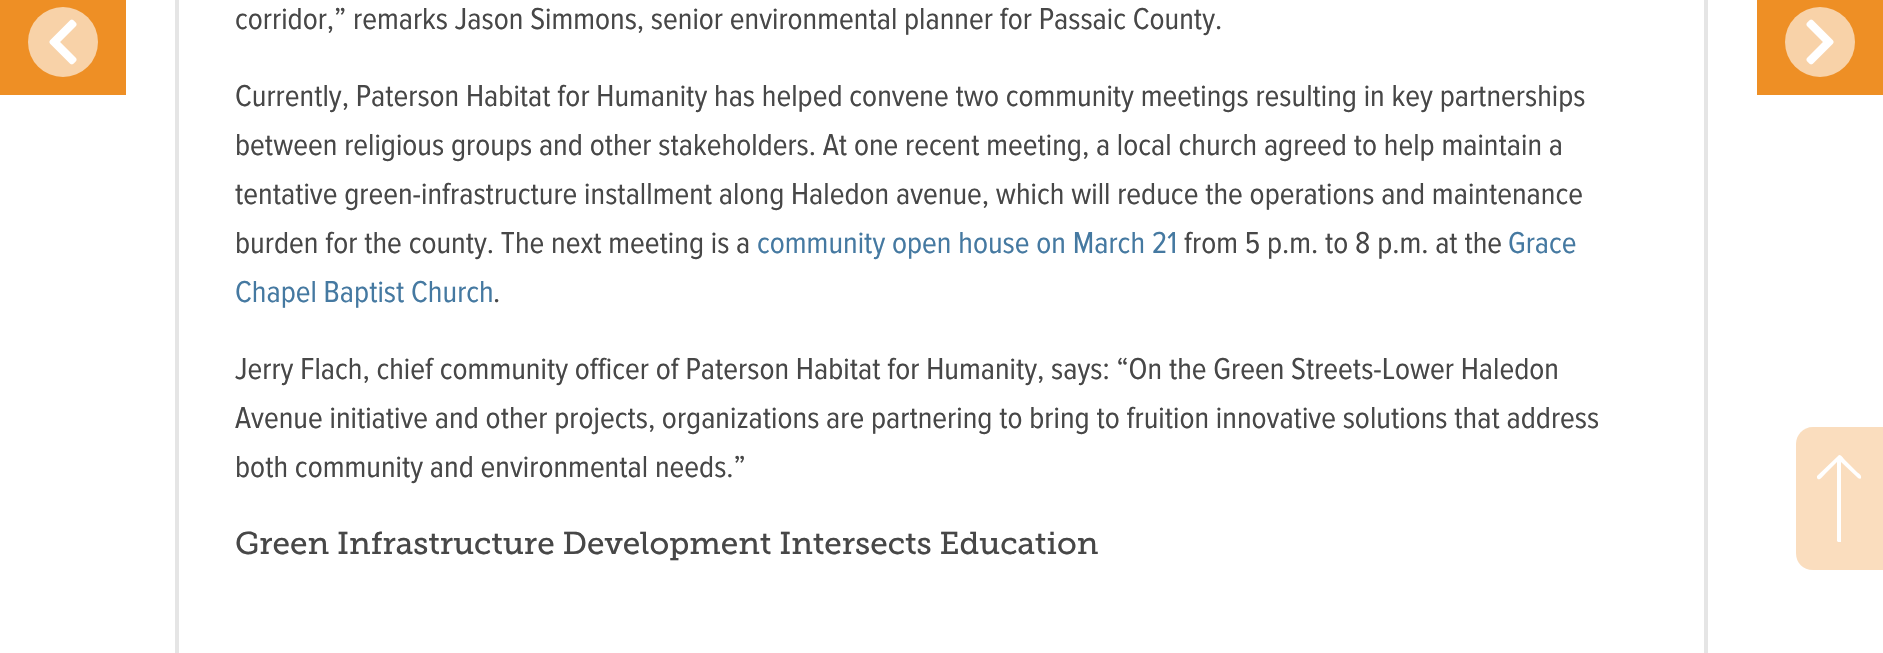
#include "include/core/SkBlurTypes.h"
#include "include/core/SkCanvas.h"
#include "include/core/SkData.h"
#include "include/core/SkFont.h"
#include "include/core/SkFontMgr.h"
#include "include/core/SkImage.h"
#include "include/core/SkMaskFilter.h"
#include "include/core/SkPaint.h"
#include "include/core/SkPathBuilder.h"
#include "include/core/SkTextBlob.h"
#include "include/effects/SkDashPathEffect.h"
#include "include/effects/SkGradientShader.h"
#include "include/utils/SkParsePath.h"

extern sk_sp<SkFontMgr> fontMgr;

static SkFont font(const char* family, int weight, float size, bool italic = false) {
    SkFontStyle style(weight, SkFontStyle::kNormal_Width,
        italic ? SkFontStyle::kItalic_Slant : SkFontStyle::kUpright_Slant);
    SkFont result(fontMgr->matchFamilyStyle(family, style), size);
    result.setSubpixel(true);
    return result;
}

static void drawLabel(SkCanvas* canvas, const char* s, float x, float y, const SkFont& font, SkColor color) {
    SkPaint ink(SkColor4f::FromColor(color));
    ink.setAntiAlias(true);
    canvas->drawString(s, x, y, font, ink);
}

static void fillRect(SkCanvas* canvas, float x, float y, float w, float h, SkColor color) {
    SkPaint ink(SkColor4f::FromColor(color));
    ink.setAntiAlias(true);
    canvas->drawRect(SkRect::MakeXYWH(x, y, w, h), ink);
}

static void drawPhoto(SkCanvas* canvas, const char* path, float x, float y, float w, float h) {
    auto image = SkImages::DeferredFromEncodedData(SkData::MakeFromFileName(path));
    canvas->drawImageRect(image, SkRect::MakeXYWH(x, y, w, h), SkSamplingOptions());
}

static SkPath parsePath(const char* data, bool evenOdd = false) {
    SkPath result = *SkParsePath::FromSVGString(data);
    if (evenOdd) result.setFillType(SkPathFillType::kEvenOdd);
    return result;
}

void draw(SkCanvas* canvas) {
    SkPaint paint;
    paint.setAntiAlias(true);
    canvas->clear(0xFFFFFFFF);
    fillRect(canvas, 0, 0, 126, 95, 0xFFEE8F25);
    paint.setColor(0xFFF8D2A8);
    canvas->drawCircle(63, 42, 35, paint);
    drawPhoto(canvas, "assets/img1.png", 49, 19, 28, 46);
    paint.setStroke(true);
    paint.setStrokeWidth(4);
    paint.setColor(0xFFE5E5E5);
    canvas->drawRect(SkRect::MakeXYWH(177, -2, 1529, 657), paint);
    SkFont font1 = font("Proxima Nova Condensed", 400, 31.5f);
    drawLabel(canvas, "corridor,” remarks Jason Simmons, senior environmental planner for Passaic County.", 235, 29, font1, 0xFF474747);
    drawLabel(canvas, "Currently, Paterson Habitat for Humanity has helped convene two community meetings resulting in key partnerships", 235, 106, font1, 0xFF474747);
    drawLabel(canvas, "between religious groups and other stakeholders. At one recent meeting, a local church agreed to help maintain a", 235, 155, font1, 0xFF474747);
    drawLabel(canvas, "tentative green-infrastructure installment along Haledon avenue, which will reduce the operations and maintenance", 235, 204, font1, 0xFF474747);
    drawLabel(canvas, "burden for the county. The next meeting is a", 235, 253, font1, 0xFF474747);
    drawLabel(canvas, "community open house on March 21", 757, 253, font1, 0xFF4579A1);
    drawLabel(canvas, "from 5 p.m. to 8 p.m. at the", 1184, 253, font1, 0xFF474747);
    drawLabel(canvas, "Grace", 1508, 253, font1, 0xFF4579A1);
    drawLabel(canvas, "Chapel Baptist Church", 235, 302, font1, 0xFF4579A1);
    drawLabel(canvas, ".", 493, 302, font1, 0xFF474747);
    drawLabel(canvas, "Jerry Flach, chief community officer of Paterson Habitat for Humanity, says: “On the Green Streets-Lower Haledon", 235, 379, font1, 0xFF474747);
    drawLabel(canvas, "Avenue initiative and other projects, organizations are partnering to bring to fruition innovative solutions that address", 235, 428, font1, 0xFF474747);
    drawLabel(canvas, "both community and environmental needs.”", 235, 477, font1, 0xFF474747);
    SkFont font2 = font("Museo Slab", 400, 31.5f);
    drawLabel(canvas, "Green Infrastructure Development Intersects Education", 235, 554, font2, 0xFF474747);
    fillRect(canvas, 1757, 0, 126, 95, 0xFFEE8F25);
    paint.setStroke(false);
    paint.setColor(0xFFF8D2A8);
    canvas->drawCircle(1820, 42, 35, paint);
    drawPhoto(canvas, "assets/img2.png", 1806, 19, 28, 46);
    paint.setColor(0xFFFADDBE);
    canvas->drawPath(parsePath("M1796 553V444C1796 435 1803 427 1813 427H1883V570H1813C1803 570 1796 563 1796 553Z"), paint);
    paint.setColor(0xFFFFFFFF);
    canvas->drawPath(parsePath("M1838 456L1817 476V478C1819 482 1823 476 1826 473L1837 462V541L1838 542H1841V541V462L1858 478C1859 479 1861 479 1861 478C1862 475 1858 473 1857 472L1844 459C1843 458 1840 453 1838 456Z"), paint);
}
